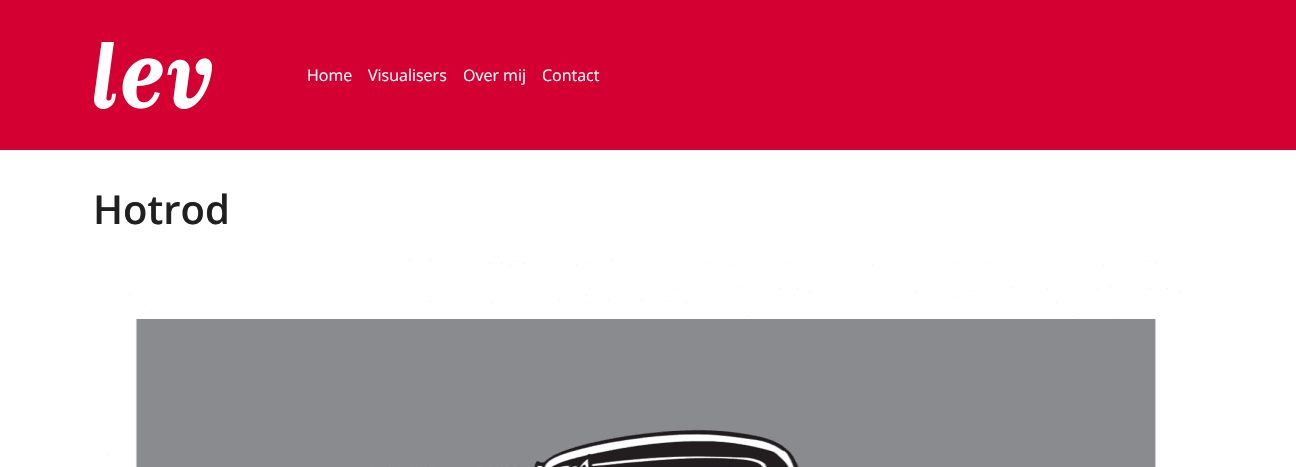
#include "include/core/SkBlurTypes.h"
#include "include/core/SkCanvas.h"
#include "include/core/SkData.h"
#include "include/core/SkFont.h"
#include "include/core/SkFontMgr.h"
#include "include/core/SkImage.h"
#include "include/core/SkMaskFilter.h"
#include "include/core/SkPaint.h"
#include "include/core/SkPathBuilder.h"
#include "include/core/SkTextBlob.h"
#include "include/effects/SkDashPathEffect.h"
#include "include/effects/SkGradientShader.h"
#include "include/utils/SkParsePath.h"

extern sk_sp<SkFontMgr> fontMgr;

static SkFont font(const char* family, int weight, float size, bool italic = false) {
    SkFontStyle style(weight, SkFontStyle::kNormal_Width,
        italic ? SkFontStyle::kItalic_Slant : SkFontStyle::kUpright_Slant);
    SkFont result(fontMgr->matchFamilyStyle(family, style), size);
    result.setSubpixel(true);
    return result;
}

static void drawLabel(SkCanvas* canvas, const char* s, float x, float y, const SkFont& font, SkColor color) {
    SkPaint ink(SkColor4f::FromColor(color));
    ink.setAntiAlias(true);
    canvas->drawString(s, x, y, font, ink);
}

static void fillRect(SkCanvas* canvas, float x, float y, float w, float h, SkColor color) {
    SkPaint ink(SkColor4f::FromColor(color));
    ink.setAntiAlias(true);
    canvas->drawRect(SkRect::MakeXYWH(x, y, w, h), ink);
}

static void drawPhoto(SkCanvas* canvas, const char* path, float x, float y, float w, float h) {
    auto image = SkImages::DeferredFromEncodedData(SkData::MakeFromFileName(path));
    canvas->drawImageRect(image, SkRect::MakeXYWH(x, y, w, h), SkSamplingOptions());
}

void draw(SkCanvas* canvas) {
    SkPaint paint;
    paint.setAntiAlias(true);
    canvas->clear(0xFFFFFFFF);
    fillRect(canvas, 0, 0, 1296, 150, 0xFFD50032);
    drawPhoto(canvas, "assets/img1.png", 94, 42, 118, 67);
    SkFont font1 = font("Open Sans", 400, 16);
    drawLabel(canvas, "Home", 307, 81, font1, 0xFFFFFFFF);
    drawLabel(canvas, "Visualisers", 368, 81, font1, 0xFFFFFFFF);
    drawLabel(canvas, "Over mij", 463, 81, font1, 0xFFFFFFFF);
    drawLabel(canvas, "Contact", 542, 81, font1, 0xFFFFFFFF);
    SkFont font2 = font("Open Sans", 600, 40);
    drawLabel(canvas, "Hotrod", 93, 224, font2, 0xFF202020);
    drawPhoto(canvas, "assets/img2.png", 108, 260, 1072, 207);
}
